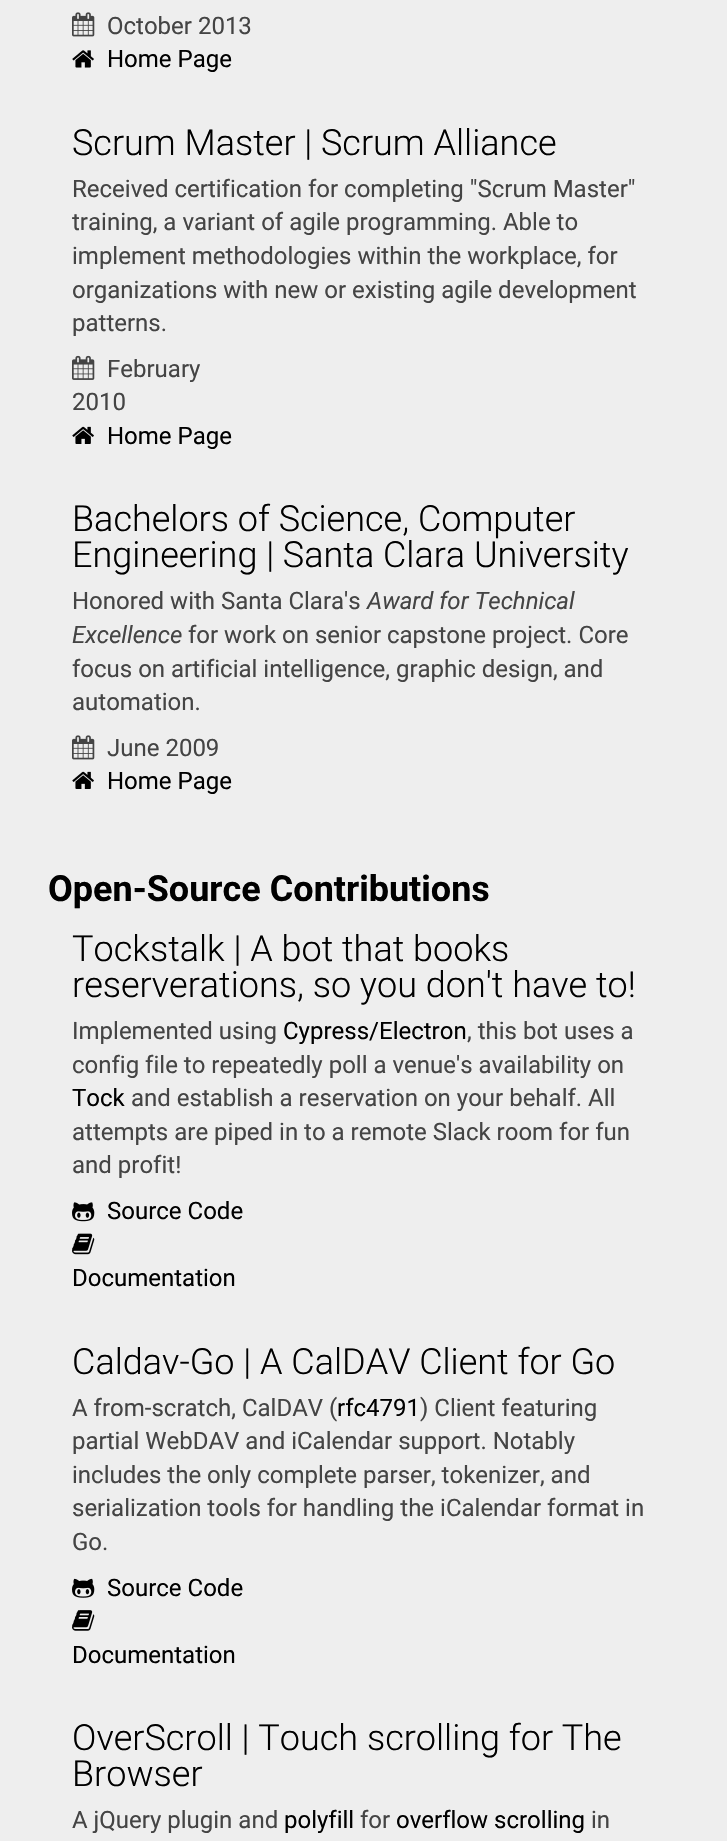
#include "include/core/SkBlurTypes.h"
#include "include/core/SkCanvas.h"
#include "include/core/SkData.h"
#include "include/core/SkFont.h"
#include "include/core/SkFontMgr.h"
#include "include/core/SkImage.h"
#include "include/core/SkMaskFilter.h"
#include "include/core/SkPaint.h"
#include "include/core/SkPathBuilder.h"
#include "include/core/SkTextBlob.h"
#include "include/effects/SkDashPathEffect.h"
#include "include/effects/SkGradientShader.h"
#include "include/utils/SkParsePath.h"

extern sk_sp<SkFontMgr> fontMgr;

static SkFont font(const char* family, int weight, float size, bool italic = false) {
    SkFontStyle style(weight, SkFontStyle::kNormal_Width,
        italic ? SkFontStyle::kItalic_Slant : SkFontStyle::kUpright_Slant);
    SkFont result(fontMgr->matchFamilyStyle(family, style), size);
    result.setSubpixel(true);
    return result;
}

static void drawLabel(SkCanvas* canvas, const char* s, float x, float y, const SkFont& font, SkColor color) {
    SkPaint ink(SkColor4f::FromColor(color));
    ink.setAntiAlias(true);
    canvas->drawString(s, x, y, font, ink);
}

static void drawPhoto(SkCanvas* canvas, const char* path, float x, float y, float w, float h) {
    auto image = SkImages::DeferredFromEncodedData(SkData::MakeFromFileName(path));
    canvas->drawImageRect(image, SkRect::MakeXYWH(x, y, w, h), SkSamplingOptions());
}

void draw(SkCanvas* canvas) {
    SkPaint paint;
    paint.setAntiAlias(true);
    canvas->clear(0xFFEEEEEE);
    drawPhoto(canvas, "assets/img1.png", 72, 12, 23, 25);
    SkFont font1 = font("Roboto", 400, 24);
    drawLabel(canvas, "October 2013", 107, 34, font1, 0xFF444444);
    drawPhoto(canvas, "assets/img2.png", 72, 50, 22, 18);
    drawLabel(canvas, "Home Page", 107, 67, font1, 0xFF000000);
    SkFont font2 = font("Roboto", 300, 36);
    drawLabel(canvas, "Scrum Master | Scrum Alliance", 72, 155, font2, 0xFF000000);
    drawLabel(canvas, "Received certification for completing \"Scrum Master\"", 72, 197, font1, 0xFF444444);
    drawLabel(canvas, "training, a variant of agile programming. Able to", 72, 230, font1, 0xFF444444);
    drawLabel(canvas, "implement methodologies within the workplace, for", 72, 264, font1, 0xFF444444);
    drawLabel(canvas, "organizations with new or existing agile development", 72, 298, font1, 0xFF444444);
    drawLabel(canvas, "patterns.", 72, 331, font1, 0xFF444444);
    drawPhoto(canvas, "assets/img3.png", 72, 355, 23, 25);
    drawLabel(canvas, "February", 107, 377, font1, 0xFF444444);
    drawLabel(canvas, "2010", 72, 410, font1, 0xFF444444);
    drawPhoto(canvas, "assets/img4.png", 72, 426, 22, 18);
    drawLabel(canvas, "Home Page", 107, 444, font1, 0xFF000000);
    drawLabel(canvas, "Bachelors of Science, Computer", 72, 531, font2, 0xFF000000);
    drawLabel(canvas, "Engineering | Santa Clara University", 72, 567, font2, 0xFF000000);
    drawLabel(canvas, "Honored with Santa Clara's", 72, 609, font1, 0xFF444444);
    SkFont font3 = font("Roboto", 400, 24, true);
    drawLabel(canvas, "Award for Technical", 367, 609, font3, 0xFF444444);
    drawLabel(canvas, "Excellence", 72, 643, font3, 0xFF444444);
    drawLabel(canvas, "for work on senior capstone project. Core", 188, 643, font1, 0xFF444444);
    drawLabel(canvas, "focus on artificial intelligence, graphic design, and", 72, 677, font1, 0xFF444444);
    drawLabel(canvas, "automation.", 72, 710, font1, 0xFF444444);
    drawPhoto(canvas, "assets/img1.png", 72, 735, 23, 25);
    drawLabel(canvas, "June 2009", 107, 756, font1, 0xFF444444);
    drawPhoto(canvas, "assets/img4.png", 72, 771, 22, 18);
    drawLabel(canvas, "Home Page", 107, 789, font1, 0xFF000000);
    SkFont font4 = font("Roboto", 700, 36);
    drawLabel(canvas, "Open-Source Contributions", 48, 901, font4, 0xFF000000);
    drawLabel(canvas, "Tockstalk | A bot that books", 72, 961, font2, 0xFF000000);
    drawLabel(canvas, "reserverations, so you don't have to!", 72, 997, font2, 0xFF000000);
    drawLabel(canvas, "Implemented using", 72, 1039, font1, 0xFF444444);
    drawLabel(canvas, "Cypress/Electron", 283, 1039, font1, 0xFF000000);
    drawLabel(canvas, ", this bot uses a", 467, 1039, font1, 0xFF444444);
    drawLabel(canvas, "config file to repeatedly poll a venue's availability on", 72, 1073, font1, 0xFF444444);
    drawLabel(canvas, "Tock", 72, 1106, font1, 0xFF000000);
    drawLabel(canvas, "and establish a reservation on your behalf. All", 131, 1106, font1, 0xFF444444);
    drawLabel(canvas, "attempts are piped in to a remote Slack room for fun", 72, 1140, font1, 0xFF444444);
    drawLabel(canvas, "and profit!", 72, 1173, font1, 0xFF444444);
    drawPhoto(canvas, "assets/img5.png", 72, 1202, 23, 20);
    drawLabel(canvas, "Source Code", 107, 1219, font1, 0xFF000000);
    drawPhoto(canvas, "assets/img6.png", 72, 1233, 23, 22);
    drawLabel(canvas, "Documentation", 72, 1286, font1, 0xFF000000);
    drawLabel(canvas, "Caldav-Go | A CalDAV Client for Go", 72, 1374, font2, 0xFF000000);
    drawLabel(canvas, "A from-scratch, CalDAV (", 72, 1416, font1, 0xFF444444);
    drawLabel(canvas, "rfc4791", 337, 1416, font1, 0xFF000000);
    drawLabel(canvas, ") Client featuring", 420, 1416, font1, 0xFF444444);
    drawLabel(canvas, "partial WebDAV and iCalendar support. Notably", 72, 1449, font1, 0xFF444444);
    drawLabel(canvas, "includes the only complete parser, tokenizer, and", 72, 1483, font1, 0xFF444444);
    drawLabel(canvas, "serialization tools for handling the iCalendar format in", 72, 1516, font1, 0xFF444444);
    drawLabel(canvas, "Go.", 72, 1550, font1, 0xFF444444);
    drawPhoto(canvas, "assets/img7.png", 72, 1578, 23, 20);
    drawLabel(canvas, "Source Code", 107, 1596, font1, 0xFF000000);
    drawPhoto(canvas, "assets/img8.png", 72, 1610, 23, 21);
    drawLabel(canvas, "Documentation", 72, 1663, font1, 0xFF000000);
    drawLabel(canvas, "OverScroll | Touch scrolling for The", 72, 1750, font2, 0xFF000000);
    drawLabel(canvas, "Browser", 72, 1786, font2, 0xFF000000);
    drawLabel(canvas, "A jQuery plugin and", 72, 1828, font1, 0xFF444444);
    drawLabel(canvas, "polyfill", 284, 1828, font1, 0xFF000000);
    drawLabel(canvas, "for", 360, 1828, font1, 0xFF444444);
    drawLabel(canvas, "overflow scrolling", 396, 1828, font1, 0xFF000000);
    drawLabel(canvas, "in", 591, 1828, font1, 0xFF444444);
}
